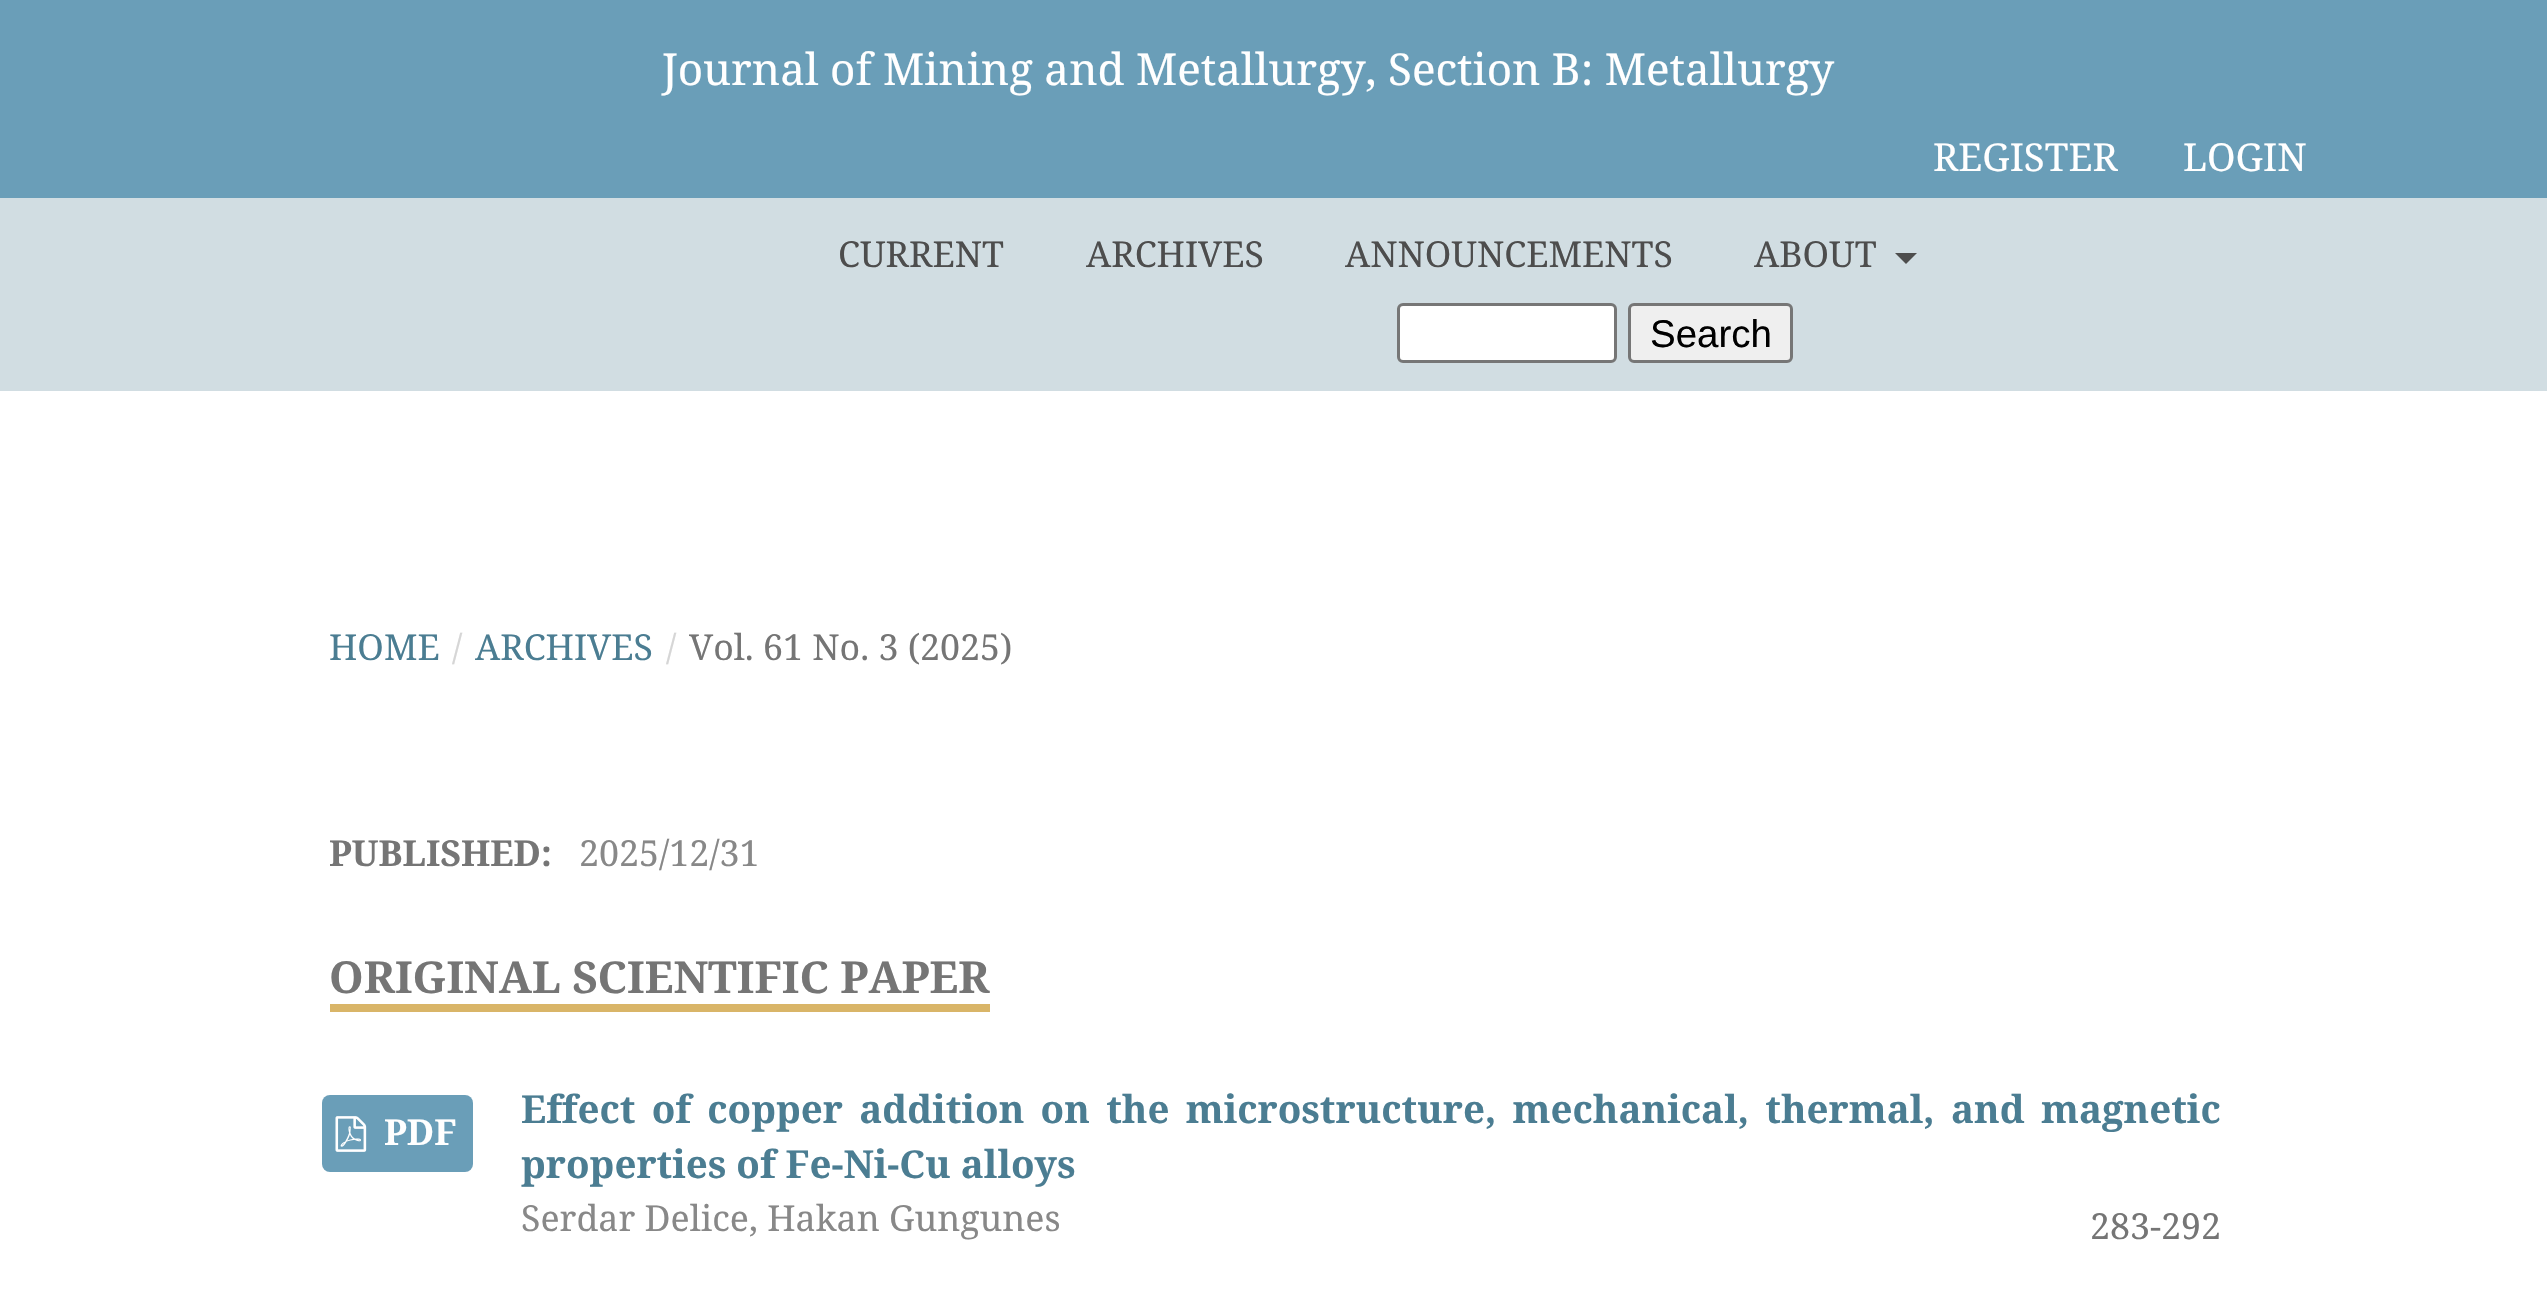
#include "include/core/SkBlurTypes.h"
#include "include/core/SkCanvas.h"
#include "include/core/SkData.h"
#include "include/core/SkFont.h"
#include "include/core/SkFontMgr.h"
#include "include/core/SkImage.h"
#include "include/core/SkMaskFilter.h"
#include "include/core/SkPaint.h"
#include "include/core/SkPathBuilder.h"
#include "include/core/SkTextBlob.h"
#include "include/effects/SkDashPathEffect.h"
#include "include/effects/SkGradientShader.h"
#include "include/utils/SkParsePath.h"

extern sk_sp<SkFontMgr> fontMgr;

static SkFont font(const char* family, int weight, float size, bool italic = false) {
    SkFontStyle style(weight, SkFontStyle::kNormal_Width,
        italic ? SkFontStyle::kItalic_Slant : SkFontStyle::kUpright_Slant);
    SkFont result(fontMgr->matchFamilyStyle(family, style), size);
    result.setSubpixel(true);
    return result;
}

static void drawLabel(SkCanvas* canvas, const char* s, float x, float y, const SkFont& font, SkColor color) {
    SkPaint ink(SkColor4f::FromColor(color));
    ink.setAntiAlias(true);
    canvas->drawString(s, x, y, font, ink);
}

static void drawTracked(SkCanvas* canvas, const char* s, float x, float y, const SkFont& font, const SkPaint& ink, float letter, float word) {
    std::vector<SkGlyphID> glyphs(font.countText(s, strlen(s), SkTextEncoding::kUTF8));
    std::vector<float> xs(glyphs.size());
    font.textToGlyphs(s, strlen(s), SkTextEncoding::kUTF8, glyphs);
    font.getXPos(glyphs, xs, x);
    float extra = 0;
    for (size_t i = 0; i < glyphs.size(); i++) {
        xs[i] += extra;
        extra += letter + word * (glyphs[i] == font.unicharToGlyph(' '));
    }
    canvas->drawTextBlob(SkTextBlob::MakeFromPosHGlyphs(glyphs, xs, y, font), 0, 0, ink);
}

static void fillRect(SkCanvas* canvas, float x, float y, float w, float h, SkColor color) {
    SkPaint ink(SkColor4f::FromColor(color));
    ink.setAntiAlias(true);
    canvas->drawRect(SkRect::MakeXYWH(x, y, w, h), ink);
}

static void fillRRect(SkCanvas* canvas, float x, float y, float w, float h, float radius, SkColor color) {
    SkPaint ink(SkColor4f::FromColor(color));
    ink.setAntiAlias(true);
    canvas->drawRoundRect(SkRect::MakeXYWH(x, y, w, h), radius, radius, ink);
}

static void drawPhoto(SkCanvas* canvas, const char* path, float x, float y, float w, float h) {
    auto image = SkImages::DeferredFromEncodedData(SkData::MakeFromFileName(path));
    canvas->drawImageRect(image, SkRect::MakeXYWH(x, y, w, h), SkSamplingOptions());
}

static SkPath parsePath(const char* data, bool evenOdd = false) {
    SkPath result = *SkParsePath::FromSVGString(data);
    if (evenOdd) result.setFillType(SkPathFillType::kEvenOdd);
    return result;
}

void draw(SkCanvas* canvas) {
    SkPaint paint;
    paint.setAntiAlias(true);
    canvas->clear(0xFFFFFFFF);
    fillRect(canvas, 0, 0, 2547, 198, 0xFF6A9EB8);
    SkFont font1 = font("Noto Serif", 400, 44);
    drawLabel(canvas, "Journal of Mining and Metallurgy, Section B: Metallurgy", 662, 85, font1, 0xFFFFFFFF);
    SkFont font2 = font("Noto Serif", 400, 38.5f);
    drawLabel(canvas, "REGISTER", 1933, 171, font2, 0xFFFFFFFF);
    drawLabel(canvas, "LOGIN", 2183, 171, font2, 0xFFFFFFFF);
    fillRect(canvas, 0, 198, 2547, 193, 0xFFD1DDE2);
    SkFont font3 = font("Noto Serif", 400, 35.75f);
    drawLabel(canvas, "CURRENT", 838, 267, font3, 0xFF4D4D4D);
    drawLabel(canvas, "ARCHIVES", 1086, 267, font3, 0xFF4D4D4D);
    drawLabel(canvas, "ANNOUNCEMENTS", 1345, 267, font3, 0xFF4D4D4D);
    drawLabel(canvas, "ABOUT", 1754, 267, font3, 0xFF4D4D4D);
    paint.setColor(0xFF4D4D4D);
    canvas->drawPath(parsePath("M1895 253H1917L1906 264Z"), paint);
    paint.setColor(0xFFFFFFFF);
    canvas->drawRoundRect(SkRect::MakeXYWH(1398.5f, 304.5f, 217, 57), 4.5f, 4.5f, paint);
    paint.setStroke(true);
    paint.setStrokeWidth(3);
    paint.setColor(0xFF767676);
    canvas->drawRoundRect(SkRect::MakeXYWH(1398.5f, 304.5f, 217, 57), 4.5f, 4.5f, paint);
    paint.setStroke(false);
    paint.setColor(0xFFEFEFEF);
    canvas->drawRoundRect(SkRect::MakeXYWH(1629.5f, 304.5f, 162, 57), 4.5f, 4.5f, paint);
    paint.setStroke(true);
    paint.setColor(0xFF767676);
    canvas->drawRoundRect(SkRect::MakeXYWH(1629.5f, 304.5f, 162, 57), 4.5f, 4.5f, paint);
    SkFont font4 = font("Liberation Sans", 400, 38.5f);
    drawLabel(canvas, "Search", 1650, 347, font4, 0xFF000000);
    drawLabel(canvas, "HOME", 329, 660, font3, 0xFF4B7D92);
    drawLabel(canvas, "/", 452, 660, font3, 0xFFD6D6D6);
    drawLabel(canvas, "ARCHIVES", 475, 660, font3, 0xFF4B7D92);
    drawLabel(canvas, "/", 666, 660, font3, 0xFFD6D6D6);
    drawLabel(canvas, "Vol. 61 No. 3 (2025)", 689, 660, font3, 0xFF757575);
    SkFont font5 = font("Noto Serif", 700, 35.75f);
    drawLabel(canvas, "PUBLISHED:", 329, 866, font5, 0xFF757575);
    drawLabel(canvas, "2025/12/31", 579, 866, font3, 0xFF888888);
    fillRect(canvas, 330, 1004, 660, 8, 0xFFD9B568);
    SkFont font6 = font("Noto Serif", 700, 44);
    drawLabel(canvas, "ORIGINAL SCIENTIFIC PAPER", 329, 993, font6, 0xFF757575);
    fillRRect(canvas, 322, 1095, 151, 77, 8, 0xFF6A9EB8);
    drawPhoto(canvas, "assets/img1.png", 335, 1116, 32, 36);
    drawLabel(canvas, "PDF", 384, 1145, font5, 0xFFFFFFFF);
    SkFont font7 = font("Noto Serif", 700, 38.5f);
    paint.setStroke(false);
    paint.setColor(0xFF4B7D92);
    drawTracked(canvas, "Effect of copper addition on the microstructure, mechanical, thermal, and magnetic", 521, 1123, font7, paint, 0, 6.25f);
    drawLabel(canvas, "properties of Fe-Ni-Cu alloys", 521, 1178, font7, 0xFF4B7D92);
    drawLabel(canvas, "Serdar Delice, Hakan Gungunes", 521, 1231, font3, 0xFF888888);
    drawLabel(canvas, "283-292", 2090, 1239, font3, 0xFF757575);
}
